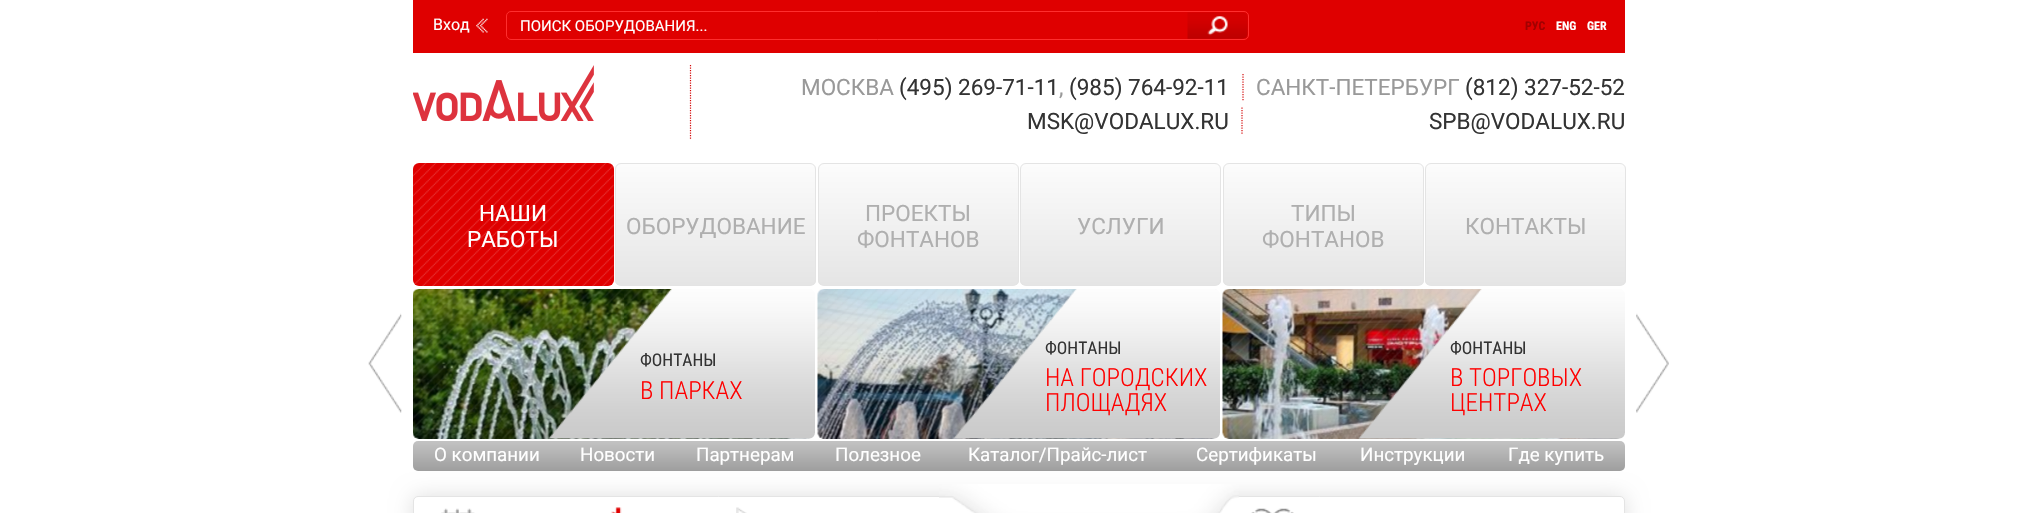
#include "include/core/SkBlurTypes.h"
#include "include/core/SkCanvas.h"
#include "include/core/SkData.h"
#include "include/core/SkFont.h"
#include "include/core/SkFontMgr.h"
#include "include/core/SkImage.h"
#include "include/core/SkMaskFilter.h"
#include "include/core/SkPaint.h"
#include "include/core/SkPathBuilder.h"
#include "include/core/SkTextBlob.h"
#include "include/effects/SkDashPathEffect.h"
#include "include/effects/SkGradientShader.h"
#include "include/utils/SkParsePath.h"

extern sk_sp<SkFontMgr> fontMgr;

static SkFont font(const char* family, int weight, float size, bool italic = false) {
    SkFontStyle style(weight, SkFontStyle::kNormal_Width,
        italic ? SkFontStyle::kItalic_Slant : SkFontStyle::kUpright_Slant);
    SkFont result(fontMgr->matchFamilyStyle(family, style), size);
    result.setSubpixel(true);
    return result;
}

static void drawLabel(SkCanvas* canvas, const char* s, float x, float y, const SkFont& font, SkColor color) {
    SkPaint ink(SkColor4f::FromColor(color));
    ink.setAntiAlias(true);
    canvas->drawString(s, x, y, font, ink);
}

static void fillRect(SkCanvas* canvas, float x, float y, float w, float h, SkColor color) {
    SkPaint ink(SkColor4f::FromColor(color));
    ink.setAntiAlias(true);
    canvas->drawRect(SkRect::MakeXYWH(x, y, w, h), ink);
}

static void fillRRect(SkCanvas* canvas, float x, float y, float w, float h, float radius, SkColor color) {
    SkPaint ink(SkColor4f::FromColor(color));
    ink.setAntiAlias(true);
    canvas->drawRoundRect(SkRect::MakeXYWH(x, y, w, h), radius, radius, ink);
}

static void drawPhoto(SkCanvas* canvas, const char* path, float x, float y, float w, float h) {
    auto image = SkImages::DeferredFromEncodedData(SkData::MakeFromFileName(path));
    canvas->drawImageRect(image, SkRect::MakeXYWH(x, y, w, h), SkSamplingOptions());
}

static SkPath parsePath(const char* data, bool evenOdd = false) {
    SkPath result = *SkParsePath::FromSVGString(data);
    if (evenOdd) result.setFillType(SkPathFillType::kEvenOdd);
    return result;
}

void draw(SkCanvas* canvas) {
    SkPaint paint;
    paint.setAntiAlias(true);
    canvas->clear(0xFFFFFFFF);
    fillRect(canvas, 413, 0, 1212, 53, 0xFFDF0000);
    SkFont font1 = font("Roboto", 400, 16);
    drawLabel(canvas, "Вход", 433, 30, font1, 0xFFFFFFFF);
    drawPhoto(canvas, "assets/img1.png", 476, 18, 12, 15);
    paint.setStroke(true);
    paint.setStrokeWidth(1);
    paint.setColor(0xFFFF2E2E);
    canvas->drawRoundRect(SkRect::MakeXYWH(506.5f, 11.5f, 742, 28), 4.5f, 4.5f, paint);
    SkFont font2 = font("Roboto", 400, 15);
    drawLabel(canvas, "ПОИСК ОБОРУДОВАНИЯ...", 520, 31, font2, 0xFFFFFFFF);
    drawPhoto(canvas, "assets/img2.png", 1187, 12, 61, 27);
    SkFont font3 = font("Roboto Condensed", 700, 12);
    drawLabel(canvas, "РУС", 1525, 30, font3, 0xFFA10000);
    drawLabel(canvas, "ENG", 1556, 30, font3, 0xFFFFFFFF);
    drawLabel(canvas, "GER", 1587, 30, font3, 0xFFFFFFFF);
    paint.setStrokeWidth(1.2f);
    paint.setColor(0xFFD50909);
    paint.setPathEffect(SkDashPathEffect::Make({{1.25f, 1.25f}}, 0));
    canvas->drawPath(parsePath("M690.5 65V140"), paint);
    paint.setPathEffect(nullptr);
    drawPhoto(canvas, "assets/img3.png", 413, 65, 181, 56);
    SkFont font4 = font("Roboto", 400, 22.5f);
    drawLabel(canvas, "МОСКВА", 801, 95, font4, 0xFF999999);
    drawLabel(canvas, "(495) 269-71-11", 899, 95, font4, 0xFF333333);
    drawLabel(canvas, ",", 1059, 95, font4, 0xFF999999);
    drawLabel(canvas, "(985) 764-92-11", 1069, 95, font4, 0xFF333333);
    paint.setPathEffect(SkDashPathEffect::Make({{1.25f, 1.25f}}, 0));
    canvas->drawPath(parsePath("M1243 74V101"), paint);
    paint.setPathEffect(nullptr);
    drawLabel(canvas, "САНКТ-ПЕТЕРБУРГ", 1256, 95, font4, 0xFF999999);
    drawLabel(canvas, "(812) 327-52-52", 1465, 95, font4, 0xFF333333);
    drawLabel(canvas, "MSK@VODALUX.RU", 1027, 129, font4, 0xFF333333);
    paint.setPathEffect(SkDashPathEffect::Make({{1.25f, 1.25f}}, 0));
    canvas->drawPath(parsePath("M1242 107.5V135"), paint);
    paint.setPathEffect(nullptr);
    drawLabel(canvas, "SPB@VODALUX.RU", 1429, 129, font4, 0xFF333333);
    fillRRect(canvas, 413, 163, 201, 123, 6, 0xFFDF0000);
    drawPhoto(canvas, "assets/img4.png", 413, 163, 201, 123);
    drawLabel(canvas, "НАШИ", 479, 221, font4, 0xFFFFFFFF);
    drawLabel(canvas, "РАБОТЫ", 467, 247, font4, 0xFFFFFFFF);
    canvas->save();
    canvas->clipPath(parsePath("M621 163H810C813.5 163 816 165.5 816 169V280C816 283.5 813.5 286 810 286H621C617.5 286 615 283.5 615 280V169C615 165.5 617.5 163 621 163Z"), true);
    paint.setStroke(false);
    {
        const SkColor colors[] = {0xFFFCFCFC, 0xFFE5E5E5};
        const float stops[] = {0, 1};
        const SkPoint ends[] = {{716, 164}, {716, 285}};
        paint.setShader(SkGradientShader::MakeLinear(ends, colors, stops, 2, SkTileMode::kClamp));
        paint.setAlpha(255);
    }
    canvas->drawRect(SkRect::MakeXYWH(615, 164, 201, 121), paint);
    canvas->restore();
    paint.setStroke(true);
    paint.setStrokeWidth(1);
    paint.setShader(nullptr);
    paint.setColor(0xFFE4E4E4);
    canvas->drawRoundRect(SkRect::MakeXYWH(615.5f, 163.5f, 200, 122), 5.5f, 5.5f, paint);
    drawLabel(canvas, "ОБОРУДОВАНИЕ", 626, 234, font4, 0xFFAFAFAF);
    canvas->save();
    canvas->clipPath(parsePath("M824 163H1013C1016.5 163 1019 165.5 1019 169V280C1019 283.5 1016.5 286 1013 286H824C820.5 286 818 283.5 818 280V169C818 165.5 820.5 163 824 163Z"), true);
    paint.setStroke(false);
    {
        const SkColor colors[] = {0xFFFCFCFC, 0xFFE5E5E5};
        const float stops[] = {0, 1};
        const SkPoint ends[] = {{918, 164}, {918, 285}};
        paint.setShader(SkGradientShader::MakeLinear(ends, colors, stops, 2, SkTileMode::kClamp));
        paint.setAlpha(255);
    }
    canvas->drawRect(SkRect::MakeXYWH(818, 164, 201, 121), paint);
    canvas->restore();
    paint.setStroke(true);
    paint.setShader(nullptr);
    paint.setColor(0xFFE4E4E4);
    canvas->drawRoundRect(SkRect::MakeXYWH(818.5f, 163.5f, 200, 122), 5.5f, 5.5f, paint);
    drawLabel(canvas, "ПРОЕКТЫ", 865, 221, font4, 0xFFAFAFAF);
    drawLabel(canvas, "ФОНТАНОВ", 857, 247, font4, 0xFFAFAFAF);
    canvas->save();
    canvas->clipPath(parsePath("M1026 163H1215C1218.5 163 1221 165.5 1221 169V280C1221 283.5 1218.5 286 1215 286H1026C1022.5 286 1020 283.5 1020 280V169C1020 165.5 1022.5 163 1026 163Z"), true);
    paint.setStroke(false);
    {
        const SkColor colors[] = {0xFFFCFCFC, 0xFFE5E5E5};
        const float stops[] = {0, 1};
        const SkPoint ends[] = {{1121, 164}, {1121, 285}};
        paint.setShader(SkGradientShader::MakeLinear(ends, colors, stops, 2, SkTileMode::kClamp));
        paint.setAlpha(255);
    }
    canvas->drawRect(SkRect::MakeXYWH(1020, 164, 201, 121), paint);
    canvas->restore();
    paint.setStroke(true);
    paint.setShader(nullptr);
    paint.setColor(0xFFE4E4E4);
    canvas->drawRoundRect(SkRect::MakeXYWH(1020.5f, 163.5f, 200, 122), 5.5f, 5.5f, paint);
    drawLabel(canvas, "УСЛУГИ", 1077, 234, font4, 0xFFAFAFAF);
    canvas->save();
    canvas->clipPath(parsePath("M1229 163H1418C1421.5 163 1424 165.5 1424 169V280C1424 283.5 1421.5 286 1418 286H1229C1225.5 286 1223 283.5 1223 280V169C1223 165.5 1225.5 163 1229 163Z"), true);
    paint.setStroke(false);
    {
        const SkColor colors[] = {0xFFFCFCFC, 0xFFE5E5E5};
        const float stops[] = {0, 1};
        const SkPoint ends[] = {{1323, 164}, {1323, 285}};
        paint.setShader(SkGradientShader::MakeLinear(ends, colors, stops, 2, SkTileMode::kClamp));
        paint.setAlpha(255);
    }
    canvas->drawRect(SkRect::MakeXYWH(1223, 164, 201, 121), paint);
    canvas->restore();
    paint.setStroke(true);
    paint.setShader(nullptr);
    paint.setColor(0xFFE4E4E4);
    canvas->drawRoundRect(SkRect::MakeXYWH(1223.5f, 163.5f, 200, 122), 5.5f, 5.5f, paint);
    drawLabel(canvas, "ТИПЫ", 1291, 221, font4, 0xFFAFAFAF);
    drawLabel(canvas, "ФОНТАНОВ", 1262, 247, font4, 0xFFAFAFAF);
    canvas->save();
    canvas->clipPath(parsePath("M1431 163H1620C1623.5 163 1626 165.5 1626 169V280C1626 283.5 1623.5 286 1620 286H1431C1427.5 286 1425 283.5 1425 280V169C1425 165.5 1427.5 163 1431 163Z"), true);
    paint.setStroke(false);
    {
        const SkColor colors[] = {0xFFFCFCFC, 0xFFE5E5E5};
        const float stops[] = {0, 1};
        const SkPoint ends[] = {{1526, 164}, {1526, 285}};
        paint.setShader(SkGradientShader::MakeLinear(ends, colors, stops, 2, SkTileMode::kClamp));
        paint.setAlpha(255);
    }
    canvas->drawRect(SkRect::MakeXYWH(1425, 164, 201, 121), paint);
    canvas->restore();
    paint.setStroke(true);
    paint.setShader(nullptr);
    paint.setColor(0xFFE4E4E4);
    canvas->drawRoundRect(SkRect::MakeXYWH(1425.5f, 163.5f, 200, 122), 5.5f, 5.5f, paint);
    drawLabel(canvas, "КОНТАКТЫ", 1465, 234, font4, 0xFFAFAFAF);
    drawPhoto(canvas, "assets/img5.png", 368, 313, 34, 100);
    drawPhoto(canvas, "assets/img6.png", 1636, 313, 33, 100);
    drawPhoto(canvas, "assets/img7.png", 413, 289, 399, 150);
    drawPhoto(canvas, "assets/img8.png", 413, 289, 399, 150);
    drawPhoto(canvas, "assets/img9.png", 546, 289, 269, 150);
    SkFont font5 = font("Roboto Condensed", 400, 17.5f);
    drawLabel(canvas, "ФОНТАНЫ", 640, 366, font5, 0xFF333333);
    SkFont font6 = font("Roboto Condensed", 300, 25);
    drawLabel(canvas, "В ПАРКАХ", 640, 399, font6, 0xFFFF0000);
    drawPhoto(canvas, "assets/img10.png", 817, 289, 400, 150);
    drawPhoto(canvas, "assets/img11.png", 817, 289, 400, 150);
    drawPhoto(canvas, "assets/img12.png", 951, 289, 269, 150);
    drawLabel(canvas, "ФОНТАНЫ", 1045, 354, font5, 0xFF333333);
    drawLabel(canvas, "НА ГОРОДСКИХ", 1045, 386, font6, 0xFFFF0000);
    drawLabel(canvas, "ПЛОЩАДЯХ", 1045, 411, font6, 0xFFFF0000);
    drawPhoto(canvas, "assets/img13.png", 1222, 289, 400, 150);
    drawPhoto(canvas, "assets/img14.png", 1223, 289, 399, 150);
    drawPhoto(canvas, "assets/img15.png", 1356, 289, 269, 150);
    drawLabel(canvas, "ФОНТАНЫ", 1450, 354, font5, 0xFF333333);
    drawLabel(canvas, "В ТОРГОВЫХ", 1450, 386, font6, 0xFFFF0000);
    drawLabel(canvas, "ЦЕНТРАХ", 1450, 411, font6, 0xFFFF0000);
    paint.setStroke(false);
    {
        const SkColor colors[] = {0xFFC3C3C3, 0xFF9E9E9E};
        const float stops[] = {0, 1};
        const SkPoint ends[] = {{1019, 441}, {1019, 471}};
        paint.setShader(SkGradientShader::MakeLinear(ends, colors, stops, 2, SkTileMode::kClamp));
        paint.setAlpha(255);
    }
    canvas->drawRoundRect(SkRect::MakeXYWH(413, 441, 1212, 30), 5, 5, paint);
    SkFont font7 = font("Roboto", 400, 18.75f);
    drawLabel(canvas, "О компании", 434, 461, font7, 0xFFFFFFFF);
    drawLabel(canvas, "Новости", 580, 461, font7, 0xFFFFFFFF);
    drawLabel(canvas, "Партнерам", 696, 461, font7, 0xFFFFFFFF);
    drawLabel(canvas, "Полезное", 835, 461, font7, 0xFFFFFFFF);
    drawLabel(canvas, "Каталог/Прайс-лист", 968, 461, font7, 0xFFFFFFFF);
    drawLabel(canvas, "Сертификаты", 1196, 461, font7, 0xFFFFFFFF);
    drawLabel(canvas, "Инструкции", 1360, 461, font7, 0xFFFFFFFF);
    drawLabel(canvas, "Где купить", 1508, 461, font7, 0xFFFFFFFF);
    paint.setShader(nullptr);
    paint.setColor(0x21000000);
    paint.setMaskFilter(SkMaskFilter::MakeBlur(kNormal_SkBlurStyle, 10.5f));
    canvas->drawRoundRect(SkRect::MakeXYWH(413, 496, 1212, 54), 5, 5, paint);
    paint.setMaskFilter(nullptr);
    paint.setColor(0xFFFFFFFF);
    canvas->drawRoundRect(SkRect::MakeXYWH(413.5f, 496.5f, 1211, 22), 4.5f, 4.5f, paint);
    paint.setStroke(true);
    paint.setColor(0xFFE4E4E4);
    canvas->drawRoundRect(SkRect::MakeXYWH(413.5f, 496.5f, 1211, 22), 4.5f, 4.5f, paint);
    drawPhoto(canvas, "assets/img16.png", 441, 508, 34, 5);
    drawPhoto(canvas, "assets/img17.png", 611, 507, 11, 6);
    drawPhoto(canvas, "assets/img18.png", 736, 507, 11, 6);
    drawPhoto(canvas, "assets/img19.png", 939, 484, 300, 29);
    drawPhoto(canvas, "assets/img20.png", 1251, 508, 43, 5);
}
